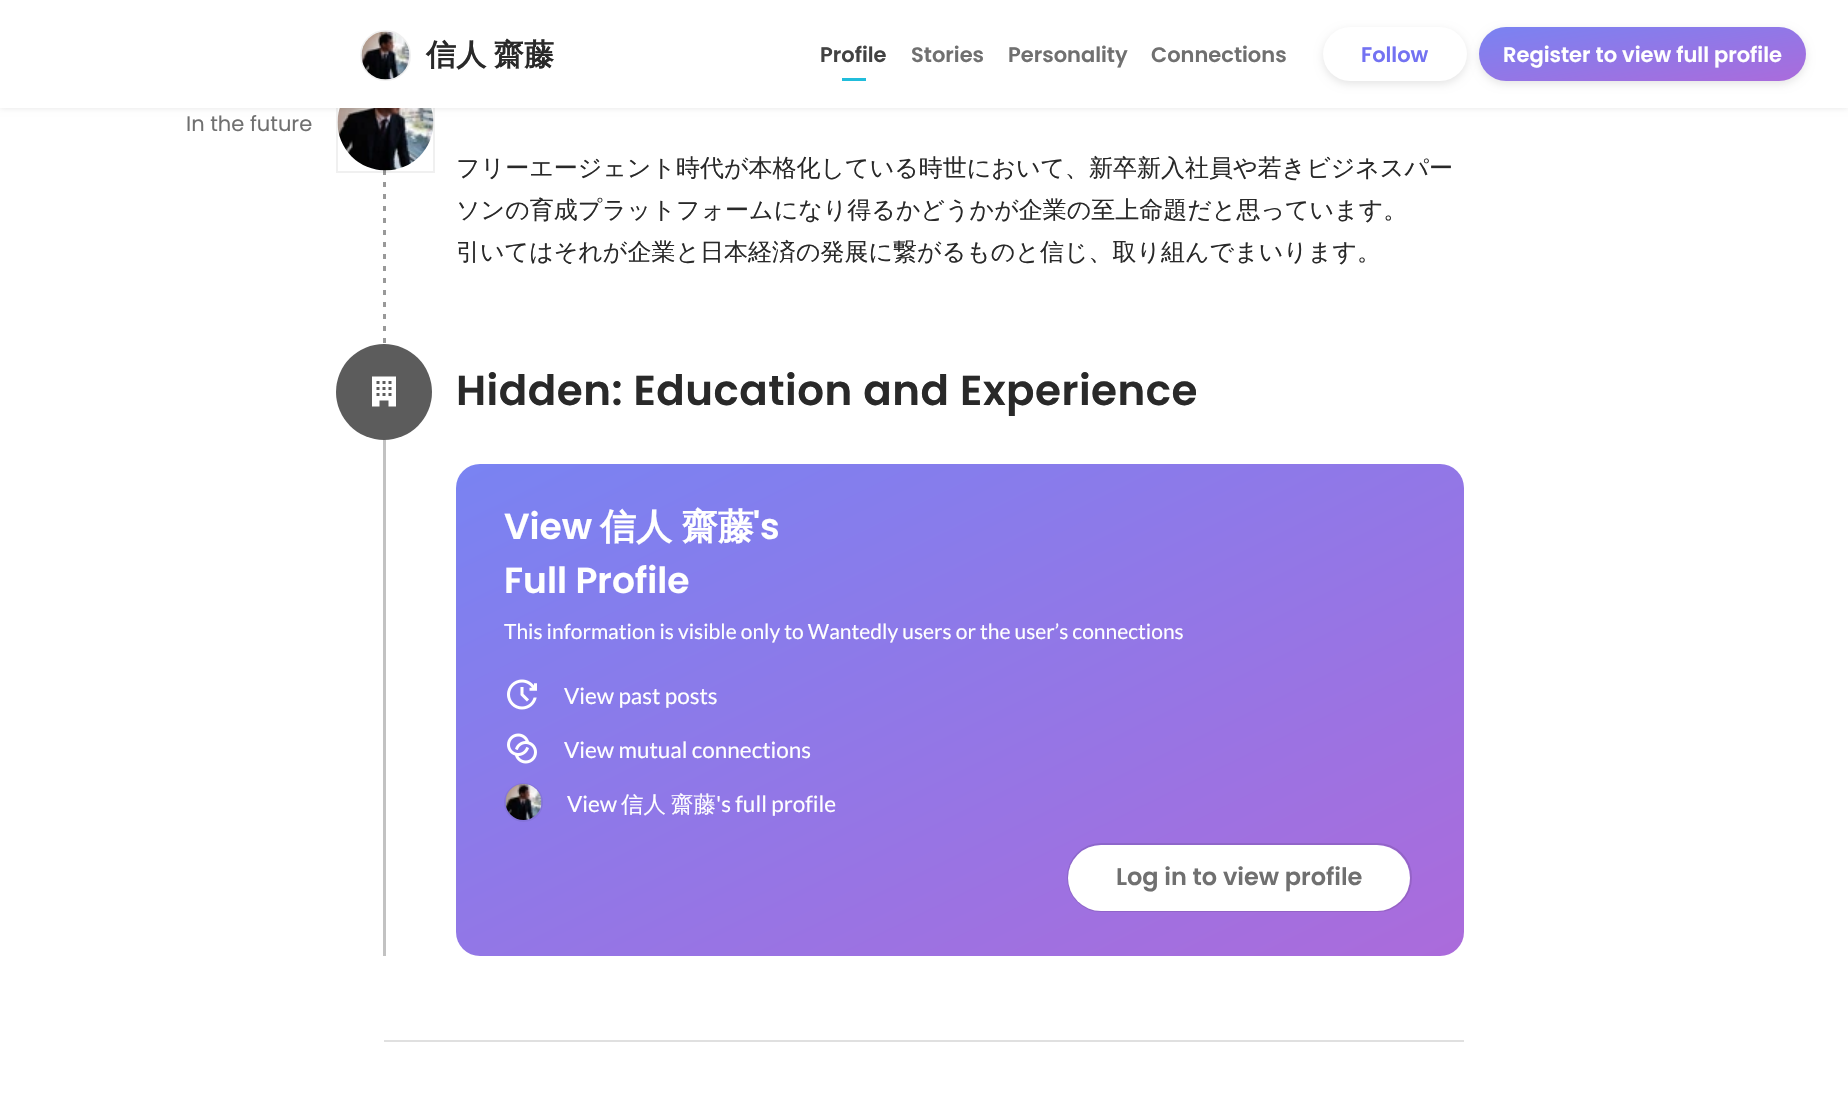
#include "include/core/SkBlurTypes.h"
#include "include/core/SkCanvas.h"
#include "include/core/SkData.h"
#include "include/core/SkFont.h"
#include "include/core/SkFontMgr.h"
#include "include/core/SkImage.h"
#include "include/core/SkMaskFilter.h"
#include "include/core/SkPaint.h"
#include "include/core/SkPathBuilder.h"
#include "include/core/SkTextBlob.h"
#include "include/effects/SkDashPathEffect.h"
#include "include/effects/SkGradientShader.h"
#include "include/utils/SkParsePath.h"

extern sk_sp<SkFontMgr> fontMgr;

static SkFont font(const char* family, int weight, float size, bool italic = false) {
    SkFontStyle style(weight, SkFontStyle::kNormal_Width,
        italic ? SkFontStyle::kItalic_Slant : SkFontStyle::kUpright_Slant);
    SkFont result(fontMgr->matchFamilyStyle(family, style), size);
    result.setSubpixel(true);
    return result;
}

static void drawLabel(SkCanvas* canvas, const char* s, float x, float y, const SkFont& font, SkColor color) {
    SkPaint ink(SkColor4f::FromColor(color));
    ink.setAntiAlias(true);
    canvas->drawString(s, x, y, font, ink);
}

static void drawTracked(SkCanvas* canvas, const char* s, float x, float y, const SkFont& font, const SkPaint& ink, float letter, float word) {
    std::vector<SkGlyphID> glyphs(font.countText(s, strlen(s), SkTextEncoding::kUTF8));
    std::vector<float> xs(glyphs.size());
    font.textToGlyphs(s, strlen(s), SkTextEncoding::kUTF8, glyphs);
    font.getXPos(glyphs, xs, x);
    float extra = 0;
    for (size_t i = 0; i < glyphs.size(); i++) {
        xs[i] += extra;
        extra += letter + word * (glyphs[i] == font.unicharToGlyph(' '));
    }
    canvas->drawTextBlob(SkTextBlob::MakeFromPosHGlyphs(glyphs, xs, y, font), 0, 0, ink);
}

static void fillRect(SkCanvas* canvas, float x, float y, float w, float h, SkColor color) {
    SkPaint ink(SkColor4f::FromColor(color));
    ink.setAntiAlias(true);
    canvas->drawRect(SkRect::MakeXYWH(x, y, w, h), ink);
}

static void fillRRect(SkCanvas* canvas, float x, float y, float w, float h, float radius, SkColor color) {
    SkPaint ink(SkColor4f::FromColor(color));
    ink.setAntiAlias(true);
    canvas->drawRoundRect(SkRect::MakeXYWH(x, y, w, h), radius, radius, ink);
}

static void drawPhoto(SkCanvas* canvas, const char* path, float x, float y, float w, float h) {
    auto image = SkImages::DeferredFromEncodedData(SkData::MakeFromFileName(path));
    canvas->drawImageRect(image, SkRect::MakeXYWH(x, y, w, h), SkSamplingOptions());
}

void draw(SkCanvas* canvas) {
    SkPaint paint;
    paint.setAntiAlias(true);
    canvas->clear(0xFFFFFFFF);
    drawPhoto(canvas, "assets/img3.png", 383, 170, 3, 173);
    paint.setStroke(true);
    paint.setStrokeWidth(2);
    paint.setColor(0x0F000000);
    canvas->drawRect(SkRect::MakeXYWH(337, 75, 97, 97), paint);
    drawPhoto(canvas, "assets/img2.png", 337, 108, 97, 63);
    paint.setStroke(false);
    paint.setColor(0x1A000000);
    paint.setMaskFilter(SkMaskFilter::MakeBlur(kNormal_SkBlurStyle, 3));
    canvas->drawRect(SkRect::MakeXYWH(0, 0, 1848, 108), paint);
    paint.setMaskFilter(nullptr);
    fillRect(canvas, 0, 0, 1848, 108, 0xFFFFFFFF);
    paint.setStroke(true);
    paint.setColor(0xFFF0F0F0);
    canvas->drawCircle(385.5f, 55.5f, 24.5f, paint);
    drawPhoto(canvas, "assets/img1.png", 361, 31, 49, 49);
    SkFont font1 = font("WenQuanYi Zen Hei", 700, 30);
    paint.setStroke(false);
    paint.setColor(0xFF292929);
    drawTracked(canvas, "信人 齋藤", 426, 65, font1, paint, 0.25f, -2);
    SkFont font2 = font("Poppins", 600, 21);
    drawLabel(canvas, "Profile", 820, 62, font2, 0xFF424242);
    fillRect(canvas, 842, 78, 24, 3, 0xFF21BDDB);
    drawLabel(canvas, "Stories", 911, 62, font2, 0xFF707070);
    drawLabel(canvas, "Personality", 1008, 62, font2, 0xFF707070);
    drawLabel(canvas, "Connections", 1151, 62, font2, 0xFF707070);
    paint.setColor(0x1A000000);
    paint.setMaskFilter(SkMaskFilter::MakeBlur(kNormal_SkBlurStyle, 4.5f));
    canvas->drawRoundRect(SkRect::MakeXYWH(1323, 30, 144, 54), 27, 27, paint);
    paint.setMaskFilter(nullptr);
    fillRRect(canvas, 1323, 27, 144, 54, 27, 0xFFFFFFFF);
    drawLabel(canvas, "Follow", 1361, 62, font2, 0xFF7372F2);
    paint.setMaskFilter(SkMaskFilter::MakeBlur(kNormal_SkBlurStyle, 4.5f));
    canvas->drawRoundRect(SkRect::MakeXYWH(1479, 30, 327, 54), 27, 27, paint);
    paint.setMaskFilter(nullptr);
    {
        const SkColor colors[] = {0xFF7983F2, 0xFFAB6BDB};
        const float stops[] = {0, 1};
        const SkPoint ends[] = {{1634, 1.4f}, {1651, 107}};
        paint.setShader(SkGradientShader::MakeLinear(ends, colors, stops, 2, SkTileMode::kClamp));
        paint.setAlpha(255);
    }
    canvas->drawRoundRect(SkRect::MakeXYWH(1479, 27, 327, 54), 27, 27, paint);
    drawLabel(canvas, "Register to view full profile", 1503, 62, font2, 0xFFFFFFFF);
    SkFont font3 = font("Poppins", 400, 21);
    drawLabel(canvas, "In the future", 186, 131, font3, 0xFF707070);
    SkFont font4 = font("WenQuanYi Zen Hei", 500, 24);
    drawLabel(canvas, "フリーエージェント時代が本格化している時世において、新卒新入社員や若きビジネスパー", 456, 176, font4, 0xFF292929);
    drawLabel(canvas, "ソンの育成プラットフォームになり得るかどうかが企業の至上命題だと思っています。", 456, 218, font4, 0xFF292929);
    drawLabel(canvas, "引いてはそれが企業と日本経済の発展に繋がるものと信じ、取り組んでまいります。", 456, 260, font4, 0xFF292929);
    fillRect(canvas, 383, 344, 3, 612, 0xFFC2C2C2);
    paint.setShader(nullptr);
    paint.setColor(0xFF5C5C5C);
    canvas->drawCircle(384, 392, 48, paint);
    drawPhoto(canvas, "assets/img4.png", 372, 376, 24, 31);
    SkFont font5 = font("Poppins", 600, 42);
    paint.setColor(0xFF292929);
    drawTracked(canvas, "Hidden: Education and Experience", 456, 405, font5, paint, 0.5f, 0);
    {
        const SkColor colors[] = {0xFF7983F2, 0xFFAB6BDB};
        const float stops[] = {0, 1};
        const SkPoint ends[] = {{766, 312}, {1154, 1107}};
        paint.setShader(SkGradientShader::MakeLinear(ends, colors, stops, 2, SkTileMode::kClamp));
        paint.setAlpha(255);
    }
    canvas->drawRoundRect(SkRect::MakeXYWH(456, 464, 1008, 492), 24, 24, paint);
    SkFont font6 = font("Poppins", 600, 36);
    drawLabel(canvas, "View", 504, 539, font6, 0xFFFFFFFF);
    SkFont font7 = font("WenQuanYi Zen Hei", 700, 36);
    paint.setShader(nullptr);
    paint.setColor(0xFFFFFFFF);
    drawTracked(canvas, "信人 齋藤", 600, 539, font7, paint, 0, -1);
    drawLabel(canvas, "'s", 753, 539, font6, 0xFFFFFFFF);
    drawLabel(canvas, "Full Profile", 504, 593, font6, 0xFFFFFFFF);
    SkFont font8 = font("Lato", 400, 21);
    drawLabel(canvas, "This information is visible only to Wantedly users or the user’s connections", 504, 639, font8, 0xFFFFFFFF);
    drawPhoto(canvas, "assets/img5.png", 507, 679, 30, 31);
    SkFont font9 = font("Lato", 400, 22.5f);
    drawLabel(canvas, "View past posts", 564, 704, font9, 0xFFFFFFFF);
    drawPhoto(canvas, "assets/img6.png", 507, 733, 30, 31);
    drawLabel(canvas, "View mutual connections", 564, 758, font9, 0xFFFFFFFF);
    paint.setStroke(true);
    paint.setColor(0xFF8473DB);
    canvas->drawCircle(523.5f, 802.5f, 18.5f, paint);
    drawPhoto(canvas, "assets/img7.png", 505, 784, 37, 36);
    drawLabel(canvas, "View", 567, 812, font9, 0xFFFFFFFF);
    SkFont font10 = font("WenQuanYi Zen Hei", 500, 22.5f);
    drawLabel(canvas, "信人", 621, 812, font10, 0xFFFFFFFF);
    drawLabel(canvas, "齋藤", 671, 812, font10, 0xFFFFFFFF);
    drawLabel(canvas, "'s full profile", 716, 812, font9, 0xFFFFFFFF);
    paint.setColor(0x1A000000);
    canvas->drawRoundRect(SkRect::MakeXYWH(1068, 844, 343, 67), 33.5f, 33.5f, paint);
    fillRRect(canvas, 1068, 845, 342, 66, 33, 0xFFFFFFFF);
    SkFont font11 = font("Poppins", 600, 24);
    drawLabel(canvas, "Log in to view profile", 1116, 885, font11, 0xFF707070);
    fillRect(canvas, 384, 1040, 1080, 2, 0xFFE0E0E0);
}
